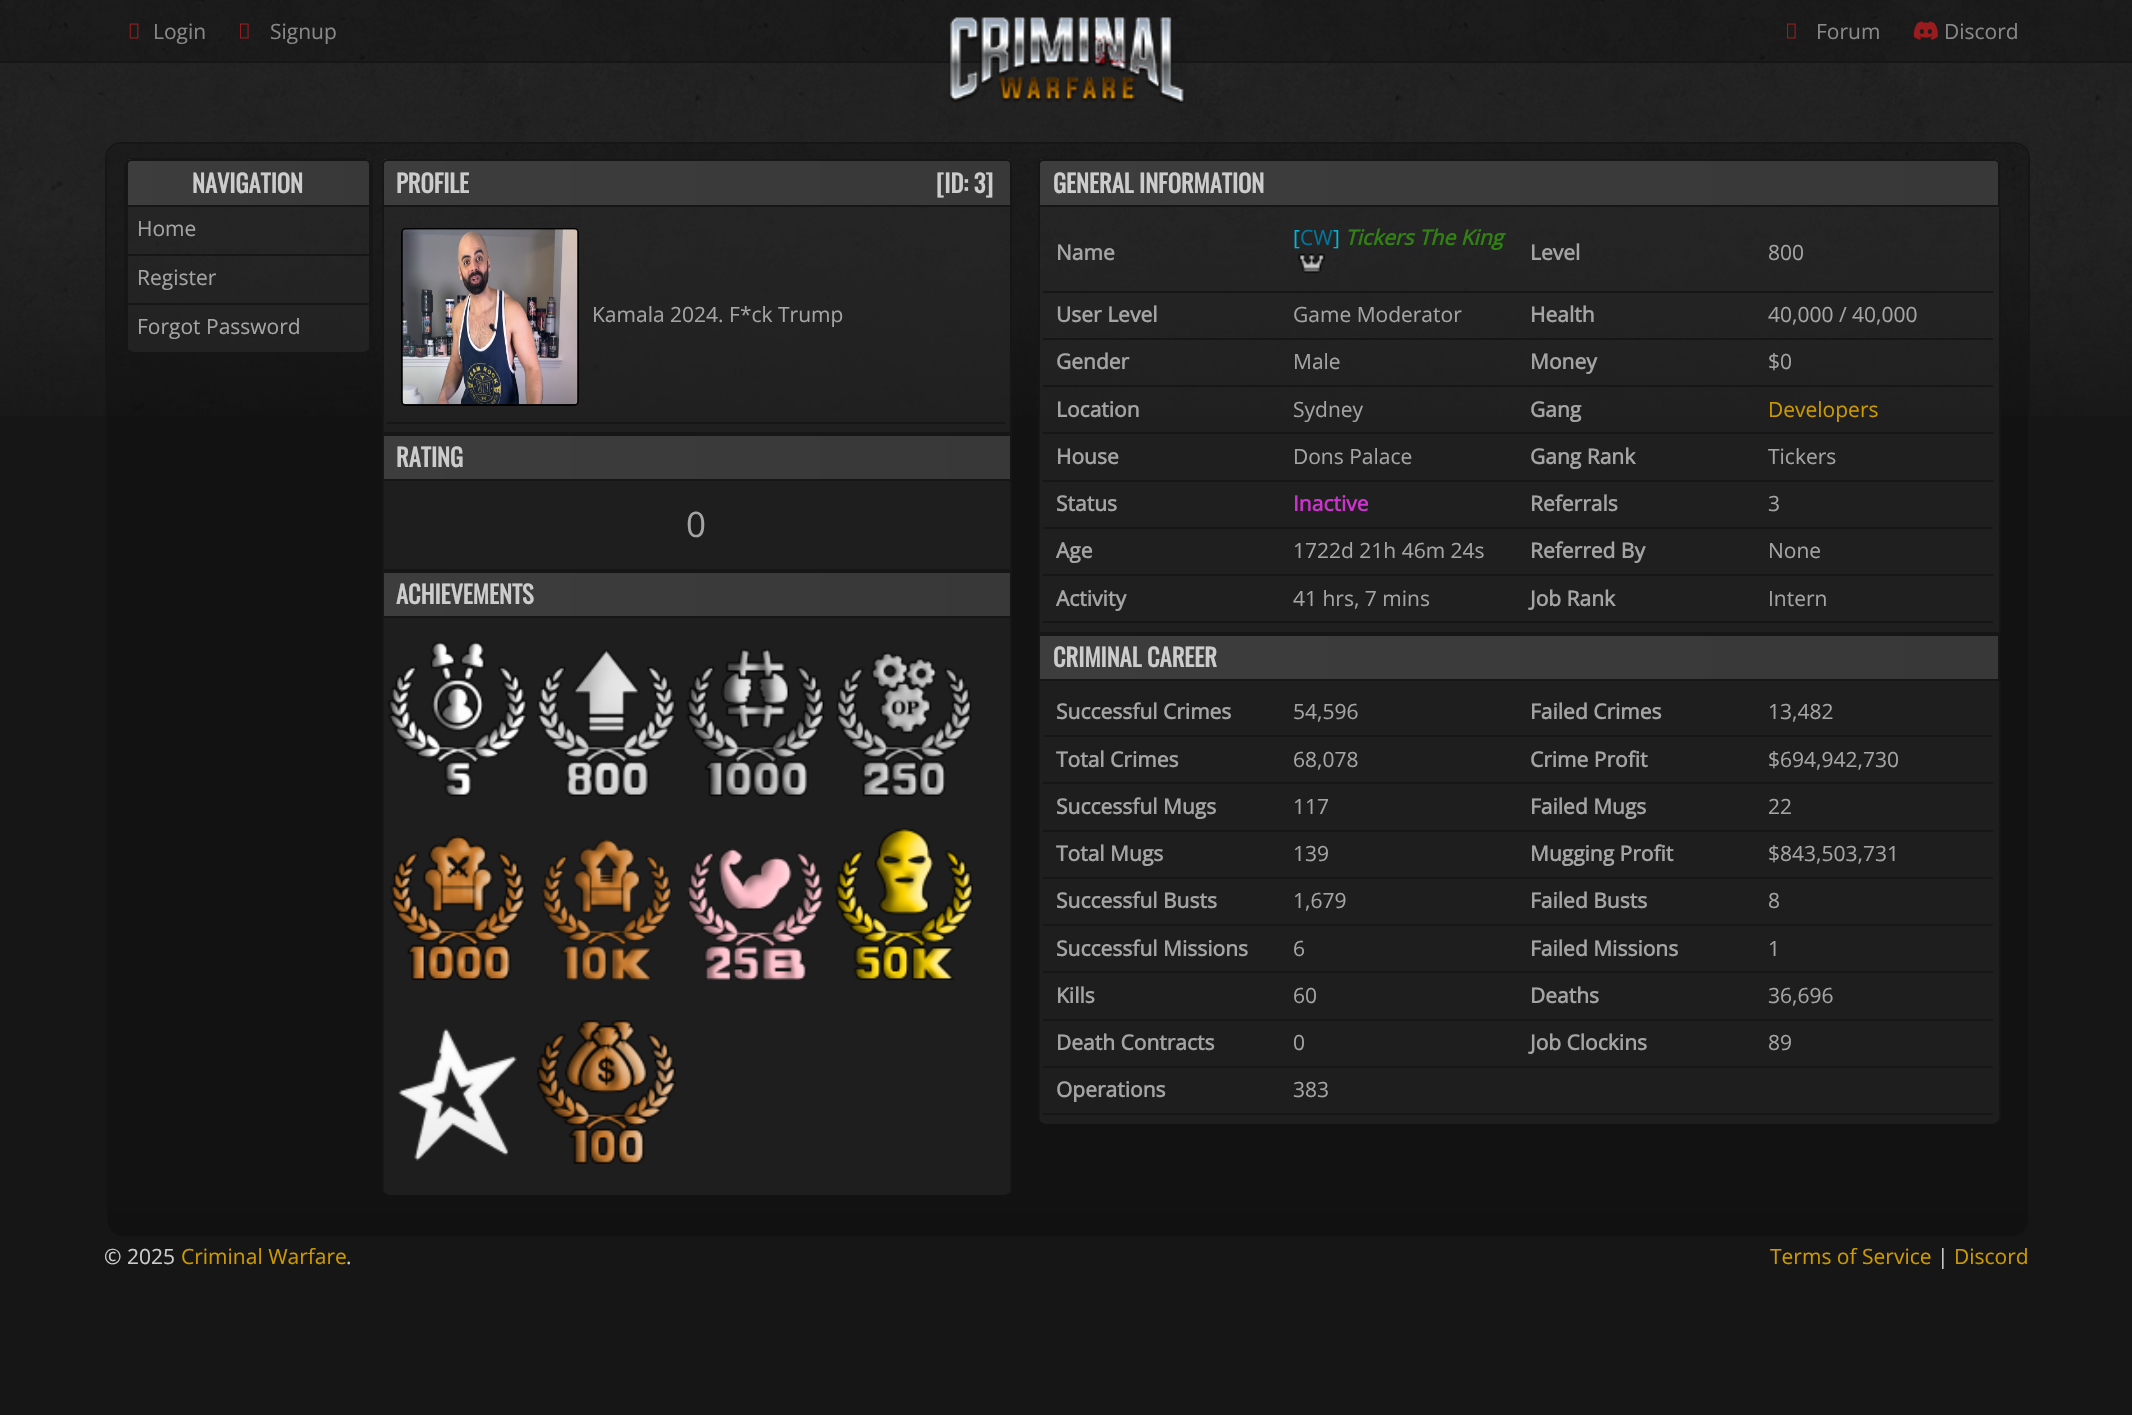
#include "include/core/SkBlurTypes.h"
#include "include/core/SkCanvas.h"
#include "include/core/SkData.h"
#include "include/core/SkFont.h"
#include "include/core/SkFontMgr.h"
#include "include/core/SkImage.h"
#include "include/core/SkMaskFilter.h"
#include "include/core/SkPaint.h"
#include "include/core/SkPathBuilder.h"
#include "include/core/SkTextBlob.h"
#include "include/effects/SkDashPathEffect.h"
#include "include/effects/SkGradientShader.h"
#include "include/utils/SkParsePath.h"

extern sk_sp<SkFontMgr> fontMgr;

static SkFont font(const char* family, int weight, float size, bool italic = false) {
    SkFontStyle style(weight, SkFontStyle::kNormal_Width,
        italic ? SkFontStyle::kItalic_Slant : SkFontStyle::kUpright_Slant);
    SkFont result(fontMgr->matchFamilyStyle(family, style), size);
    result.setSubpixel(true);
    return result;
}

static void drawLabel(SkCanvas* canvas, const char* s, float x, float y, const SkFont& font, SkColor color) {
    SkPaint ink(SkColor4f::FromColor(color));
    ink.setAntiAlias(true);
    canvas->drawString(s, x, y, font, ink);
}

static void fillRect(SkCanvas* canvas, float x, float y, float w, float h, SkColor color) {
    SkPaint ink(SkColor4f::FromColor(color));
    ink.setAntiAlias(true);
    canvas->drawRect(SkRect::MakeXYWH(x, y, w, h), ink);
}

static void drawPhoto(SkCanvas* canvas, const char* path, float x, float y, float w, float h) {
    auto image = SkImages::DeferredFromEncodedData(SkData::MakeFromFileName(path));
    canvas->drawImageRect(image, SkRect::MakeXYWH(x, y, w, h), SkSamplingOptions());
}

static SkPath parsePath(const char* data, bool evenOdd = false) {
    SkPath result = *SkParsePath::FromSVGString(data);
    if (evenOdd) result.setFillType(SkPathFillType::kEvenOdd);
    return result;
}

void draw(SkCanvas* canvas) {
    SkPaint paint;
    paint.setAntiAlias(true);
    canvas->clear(0xFF161616);
    drawPhoto(canvas, "assets/img1.png", 0, 0, 2132, 416);
    fillRect(canvas, 0, 0, 2132, 61, 0x38000000);
    fillRect(canvas, 0, 61, 2132, 2, 0xFF161616);
    drawPhoto(canvas, "assets/img2.png", 129, 23, 10, 16);
    SkFont font1 = font("Open Sans", 400, 21);
    drawLabel(canvas, "Login", 153, 39, font1, 0xFF888888);
    drawPhoto(canvas, "assets/img3.png", 240, 23, 9, 16);
    drawLabel(canvas, "Signup", 270, 39, font1, 0xFF888888);
    drawPhoto(canvas, "assets/img4.png", 948, 17, 237, 87);
    drawPhoto(canvas, "assets/img5.png", 1787, 23, 9, 16);
    drawLabel(canvas, "Forum", 1816, 39, font1, 0xFF888888);
    drawPhoto(canvas, "assets/img6.png", 1913, 21, 25, 19);
    drawLabel(canvas, "Discord", 1944, 39, font1, 0xFF888888);
    paint.setColor(0x38000000);
    canvas->drawPath(parsePath("M121 144H2014C2021.5 144 2028 150.5 2028 158H107C107 150.5 113.5 144 121 144Z"), paint);
    paint.setColor(0xFF161616);
    canvas->drawPath(parsePath("M121 142H2014C2023 142 2030 149 2030 158H105C105 149 112 142 121 142ZM121 144H2014C2022 144 2028 150 2028 158H107C107 150 113 144 121 144Z", true), paint);
    fillRect(canvas, 107, 158, 1921, 1055, 0x38000000);
    fillRect(canvas, 2028, 158, 2, 258, 0xFF161616);
    fillRect(canvas, 105, 158, 2, 258, 0xFF161616);
    paint.setStroke(true);
    paint.setStrokeWidth(2);
    canvas->drawRoundRect(SkRect::MakeXYWH(125, 159, 247, 194), 8, 8, paint);
    canvas->save();
    canvas->clipPath(parsePath("M131 159H366C369 159 371 161 371 164V207H126V164C126 161 128 159 131 159Z"), true);
    paint.setStroke(false);
    {
        const SkColor colors[] = {0xFF3E3D3D, 0xFF383838};
        const float stops[] = {0, 1};
        const SkPoint ends[] = {{128, 183}, {369, 183}};
        paint.setShader(SkGradientShader::MakeLinear(ends, colors, stops, 2, SkTileMode::kClamp));
        paint.setAlpha(255);
    }
    canvas->drawRect(SkRect::MakeXYWH(128, 159, 241, 46), paint);
    canvas->restore();
    paint.setStroke(true);
    paint.setShader(nullptr);
    paint.setColor(0xFF161616);
    canvas->drawPath(parsePath("M131 160H366C368 160 370 162 370 164V206H127V164C127 162 129 160 131 160Z"), paint);
    SkFont font2 = font("Oswald", 700, 24.5f);
    drawLabel(canvas, "NAVIGATION", 192, 193, font2, 0xFFCCCCCC);
    fillRect(canvas, 128, 207, 241, 47, 0x66323232);
    fillRect(canvas, 369, 207, 2, 98, 0xFF161616);
    fillRect(canvas, 126, 254, 245, 2, 0xFF161616);
    fillRect(canvas, 126, 207, 2, 49, 0xFF161616);
    drawLabel(canvas, "Home", 137, 236, font1, 0xFFA4A4A4);
    fillRect(canvas, 128, 256, 241, 47, 0x66323232);
    fillRect(canvas, 126, 303, 245, 2, 0xFF161616);
    fillRect(canvas, 126, 256, 2, 49, 0xFF161616);
    drawLabel(canvas, "Register", 137, 285, font1, 0xFFA4A4A4);
    paint.setStroke(false);
    paint.setColor(0x66323232);
    canvas->drawPath(parsePath("M126 305H371V343C371 348 367 352 362 352H135C130 352 126 348 126 343Z"), paint);
    fillRect(canvas, 369, 305, 2, 43, 0xFF161616);
    fillRect(canvas, 126, 305, 2, 43, 0xFF161616);
    drawLabel(canvas, "Forgot Password", 137, 334, font1, 0xFFA4A4A4);
    canvas->save();
    canvas->clipPath(parsePath("M387 159H1007C1010 159 1012 161 1012 164V207H382V164C382 161 384 159 387 159Z"), true);
    {
        const SkColor colors[] = {0xFF3E3D3D, 0xFF383838};
        const float stops[] = {0, 1};
        const SkPoint ends[] = {{383, 183}, {1010, 183}};
        paint.setShader(SkGradientShader::MakeLinear(ends, colors, stops, 2, SkTileMode::kClamp));
        paint.setAlpha(255);
    }
    canvas->drawRect(SkRect::MakeXYWH(383, 159, 627, 46), paint);
    canvas->restore();
    paint.setStroke(true);
    paint.setShader(nullptr);
    paint.setColor(0xFF161616);
    canvas->drawPath(parsePath("M387 160H1007C1009 160 1011 162 1011 164V206H383V164C383 162 385 160 387 160Z"), paint);
    drawLabel(canvas, "PROFILE", 396, 193, font2, 0xFFCCCCCC);
    drawLabel(canvas, "[ID: 3]", 936, 193, font2, 0xFFCCCCCC);
    fillRect(canvas, 384, 207, 626, 225, 0x66323232);
    fillRect(canvas, 1010, 207, 2, 227, 0xFF161616);
    fillRect(canvas, 382, 432, 630, 2, 0xFF161616);
    fillRect(canvas, 382, 207, 2, 227, 0xFF161616);
    fillRect(canvas, 387, 422, 618, 2, 0xFF161616);
    paint.setColor(0xFF000000);
    canvas->drawRoundRect(SkRect::MakeXYWH(402, 229, 176, 176), 4, 4, paint);
    drawPhoto(canvas, "assets/img7.png", 402, 229, 176, 176);
    drawLabel(canvas, "Kamala 2024. F*ck Trump", 592, 322, font1, 0xFFA4A4A4);
    paint.setStroke(false);
    {
        const SkColor colors[] = {0xFF3E3D3D, 0xFF383838};
        const float stops[] = {0, 1};
        const SkPoint ends[] = {{383, 458}, {1010, 458}};
        paint.setShader(SkGradientShader::MakeLinear(ends, colors, stops, 2, SkTileMode::kClamp));
        paint.setAlpha(255);
    }
    canvas->drawRect(SkRect::MakeXYWH(384, 436, 626, 43), paint);
    paint.setStroke(true);
    paint.setShader(nullptr);
    paint.setColor(0xFF161616);
    canvas->drawRect(SkRect::MakeXYWH(383, 435, 628, 45), paint);
    drawLabel(canvas, "RATING", 396, 467, font2, 0xFFCCCCCC);
    fillRect(canvas, 384, 481, 626, 88, 0xFF1E1E1E);
    fillRect(canvas, 1010, 481, 2, 90, 0xFF161616);
    fillRect(canvas, 382, 569, 630, 2, 0xFF161616);
    fillRect(canvas, 382, 481, 2, 90, 0xFF161616);
    SkFont font3 = font("Open Sans", 400, 35);
    drawLabel(canvas, "0", 686, 537, font3, 0xFFA4A4A4);
    paint.setStroke(false);
    {
        const SkColor colors[] = {0xFF3E3D3D, 0xFF383838};
        const float stops[] = {0, 1};
        const SkPoint ends[] = {{383, 594}, {1010, 594}};
        paint.setShader(SkGradientShader::MakeLinear(ends, colors, stops, 2, SkTileMode::kClamp));
        paint.setAlpha(255);
    }
    canvas->drawRect(SkRect::MakeXYWH(384, 573, 626, 43), paint);
    paint.setStroke(true);
    paint.setShader(nullptr);
    paint.setColor(0xFF161616);
    canvas->drawRect(SkRect::MakeXYWH(383, 572, 628, 45), paint);
    drawLabel(canvas, "ACHIEVEMENTS", 396, 604, font2, 0xFFCCCCCC);
    paint.setStroke(false);
    paint.setColor(0xFF1E1E1E);
    canvas->drawPath(parsePath("M382 618H1012V1186C1012 1191 1008 1195 1003 1195H391C386 1195 382 1191 382 1186Z"), paint);
    fillRect(canvas, 1010, 618, 2, 574, 0xFF161616);
    fillRect(canvas, 382, 618, 2, 574, 0xFF161616);
    drawPhoto(canvas, "assets/img8.png", 388, 641, 139, 156);
    drawPhoto(canvas, "assets/img9.png", 537, 649, 139, 148);
    drawPhoto(canvas, "assets/img10.png", 686, 648, 139, 149);
    drawPhoto(canvas, "assets/img11.png", 836, 651, 136, 146);
    drawPhoto(canvas, "assets/img12.png", 390, 835, 136, 145);
    drawPhoto(canvas, "assets/img13.png", 541, 839, 131, 141);
    drawPhoto(canvas, "assets/img14.png", 687, 848, 136, 132);
    drawPhoto(canvas, "assets/img15.png", 835, 828, 138, 152);
    drawPhoto(canvas, "assets/img16.png", 398, 1028, 119, 133);
    drawPhoto(canvas, "assets/img17.png", 537, 1020, 139, 144);
    canvas->save();
    canvas->clipPath(parsePath("M1043 159H1995C1998 159 2000 161 2000 164V207H1038V164C1038 161 1040 159 1043 159Z"), true);
    {
        const SkColor colors[] = {0xFF3E3D3D, 0xFF383838};
        const float stops[] = {0, 1};
        const SkPoint ends[] = {{1040, 183}, {1999, 183}};
        paint.setShader(SkGradientShader::MakeLinear(ends, colors, stops, 2, SkTileMode::kClamp));
        paint.setAlpha(255);
    }
    canvas->drawRect(SkRect::MakeXYWH(1040, 159, 959, 46), paint);
    canvas->restore();
    paint.setStroke(true);
    paint.setShader(nullptr);
    paint.setColor(0xFF161616);
    canvas->drawPath(parsePath("M1043 160H1995C1997 160 1999 162 1999 164V206H1039V164C1039 162 1041 160 1043 160Z"), paint);
    drawLabel(canvas, "GENERAL INFORMATION", 1053, 193, font2, 0xFFCCCCCC);
    fillRect(canvas, 1040, 207, 959, 425, 0x66323232);
    fillRect(canvas, 1999, 207, 2, 427, 0xFF161616);
    fillRect(canvas, 1038, 632, 962, 2, 0xFF161616);
    fillRect(canvas, 1038, 207, 2, 427, 0xFF161616);
    fillRect(canvas, 1043, 291, 950, 2, 0xFF161616);
    SkFont font4 = font("Open Sans", 700, 21);
    drawLabel(canvas, "Name", 1056, 260, font4, 0xFFA4A4A4);
    drawLabel(canvas, "[", 1293, 245, font1, 0xFF03B5D6);
    drawLabel(canvas, "CW", 1300, 245, font1, 0xFF02759B);
    drawLabel(canvas, "]", 1333, 245, font1, 0xFF03B5D6);
    SkFont font5 = font("Open Sans", 700, 21, true);
    drawLabel(canvas, "Tickers The King", 1345, 245, font5, 0xFF308014);
    drawPhoto(canvas, "assets/img18.png", 1298, 253, 27, 21);
    drawLabel(canvas, "Level", 1530, 260, font4, 0xFFA4A4A4);
    drawLabel(canvas, "800", 1768, 260, font1, 0xFFA4A4A4);
    fillRect(canvas, 1043, 338, 950, 2, 0xFF161616);
    drawLabel(canvas, "User Level", 1056, 322, font4, 0xFFA4A4A4);
    drawLabel(canvas, "Game Moderator", 1293, 322, font1, 0xFFA4A4A4);
    drawLabel(canvas, "Health", 1530, 322, font4, 0xFFA4A4A4);
    drawLabel(canvas, "40,000 / 40,000", 1768, 322, font1, 0xFFA4A4A4);
    fillRect(canvas, 1043, 385, 950, 2, 0xFF161616);
    drawLabel(canvas, "Gender", 1056, 369, font4, 0xFFA4A4A4);
    drawLabel(canvas, "Male", 1293, 369, font1, 0xFFA4A4A4);
    drawLabel(canvas, "Money", 1530, 369, font4, 0xFFA4A4A4);
    drawLabel(canvas, "$0", 1768, 369, font1, 0xFFA4A4A4);
    fillRect(canvas, 1043, 432, 950, 2, 0xFF161616);
    drawLabel(canvas, "Location", 1056, 417, font4, 0xFFA4A4A4);
    drawLabel(canvas, "Sydney", 1293, 417, font1, 0xFFA4A4A4);
    drawLabel(canvas, "Gang", 1530, 417, font4, 0xFFA4A4A4);
    drawLabel(canvas, "Developers", 1768, 417, font1, 0xFFCC9900);
    fillRect(canvas, 1043, 480, 950, 2, 0xFF161616);
    drawLabel(canvas, "House", 1056, 464, font4, 0xFFA4A4A4);
    drawLabel(canvas, "Dons Palace", 1293, 464, font1, 0xFFA4A4A4);
    drawLabel(canvas, "Gang Rank", 1530, 464, font4, 0xFFA4A4A4);
    drawLabel(canvas, "Tickers", 1768, 464, font1, 0xFFA4A4A4);
    fillRect(canvas, 1043, 527, 950, 2, 0xFF161616);
    drawLabel(canvas, "Status", 1056, 511, font4, 0xFFA4A4A4);
    drawLabel(canvas, "Inactive", 1293, 511, font4, 0xFFCC33CC);
    drawLabel(canvas, "Referrals", 1530, 511, font4, 0xFFA4A4A4);
    drawLabel(canvas, "3", 1768, 511, font1, 0xFFA4A4A4);
    fillRect(canvas, 1043, 574, 950, 2, 0xFF161616);
    drawLabel(canvas, "Age", 1056, 558, font4, 0xFFA4A4A4);
    drawLabel(canvas, "1722d 21h 46m 24s", 1293, 558, font1, 0xFFA4A4A4);
    drawLabel(canvas, "Referred By", 1530, 558, font4, 0xFFA4A4A4);
    drawLabel(canvas, "None", 1768, 558, font1, 0xFFA4A4A4);
    fillRect(canvas, 1043, 621, 950, 2, 0xFF161616);
    drawLabel(canvas, "Activity", 1056, 606, font4, 0xFFA4A4A4);
    drawLabel(canvas, "41 hrs, 7 mins", 1293, 606, font1, 0xFFA4A4A4);
    drawLabel(canvas, "Job Rank", 1530, 606, font4, 0xFFA4A4A4);
    drawLabel(canvas, "Intern", 1768, 606, font1, 0xFFA4A4A4);
    paint.setStroke(false);
    {
        const SkColor colors[] = {0xFF3E3D3D, 0xFF383838};
        const float stops[] = {0, 1};
        const SkPoint ends[] = {{1040, 657}, {1999, 657}};
        paint.setShader(SkGradientShader::MakeLinear(ends, colors, stops, 2, SkTileMode::kClamp));
        paint.setAlpha(255);
    }
    canvas->drawRect(SkRect::MakeXYWH(1040, 636, 958, 43), paint);
    paint.setStroke(true);
    paint.setShader(nullptr);
    paint.setColor(0xFF161616);
    canvas->drawRect(SkRect::MakeXYWH(1039, 635, 960, 45), paint);
    drawLabel(canvas, "CRIMINAL CAREER", 1053, 667, font2, 0xFFCCCCCC);
    paint.setStroke(false);
    paint.setColor(0xFF1E1E1E);
    canvas->drawPath(parsePath("M1038 681H2000V1115C2000 1120 1996 1124 1991 1124H1047C1042 1124 1038 1120 1038 1115Z"), paint);
    fillRect(canvas, 1999, 681, 2, 439, 0xFF161616);
    fillRect(canvas, 1038, 681, 2, 439, 0xFF161616);
    fillRect(canvas, 1043, 735, 950, 2, 0xFF161616);
    drawLabel(canvas, "Successful Crimes", 1056, 719, font4, 0xFFA4A4A4);
    drawLabel(canvas, "54,596", 1293, 719, font1, 0xFFA4A4A4);
    drawLabel(canvas, "Failed Crimes", 1530, 719, font4, 0xFFA4A4A4);
    drawLabel(canvas, "13,482", 1768, 719, font1, 0xFFA4A4A4);
    fillRect(canvas, 1043, 782, 950, 2, 0xFF161616);
    drawLabel(canvas, "Total Crimes", 1056, 767, font4, 0xFFA4A4A4);
    drawLabel(canvas, "68,078", 1293, 767, font1, 0xFFA4A4A4);
    drawLabel(canvas, "Crime Profit", 1530, 767, font4, 0xFFA4A4A4);
    drawLabel(canvas, "$694,942,730", 1768, 767, font1, 0xFFA4A4A4);
    fillRect(canvas, 1043, 830, 950, 2, 0xFF161616);
    drawLabel(canvas, "Successful Mugs", 1056, 814, font4, 0xFFA4A4A4);
    drawLabel(canvas, "117", 1293, 814, font1, 0xFFA4A4A4);
    drawLabel(canvas, "Failed Mugs", 1530, 814, font4, 0xFFA4A4A4);
    drawLabel(canvas, "22", 1768, 814, font1, 0xFFA4A4A4);
    fillRect(canvas, 1043, 877, 950, 2, 0xFF161616);
    drawLabel(canvas, "Total Mugs", 1056, 861, font4, 0xFFA4A4A4);
    drawLabel(canvas, "139", 1293, 861, font1, 0xFFA4A4A4);
    drawLabel(canvas, "Mugging Profit", 1530, 861, font4, 0xFFA4A4A4);
    drawLabel(canvas, "$843,503,731", 1768, 861, font1, 0xFFA4A4A4);
    fillRect(canvas, 1043, 924, 950, 2, 0xFF161616);
    drawLabel(canvas, "Successful Busts", 1056, 908, font4, 0xFFA4A4A4);
    drawLabel(canvas, "1,679", 1293, 908, font1, 0xFFA4A4A4);
    drawLabel(canvas, "Failed Busts", 1530, 908, font4, 0xFFA4A4A4);
    drawLabel(canvas, "8", 1768, 908, font1, 0xFFA4A4A4);
    fillRect(canvas, 1043, 971, 950, 2, 0xFF161616);
    drawLabel(canvas, "Successful Missions", 1056, 956, font4, 0xFFA4A4A4);
    drawLabel(canvas, "6", 1293, 956, font1, 0xFFA4A4A4);
    drawLabel(canvas, "Failed Missions", 1530, 956, font4, 0xFFA4A4A4);
    drawLabel(canvas, "1", 1768, 956, font1, 0xFFA4A4A4);
    fillRect(canvas, 1043, 1019, 950, 2, 0xFF161616);
    drawLabel(canvas, "Kills", 1056, 1003, font4, 0xFFA4A4A4);
    drawLabel(canvas, "60", 1293, 1003, font1, 0xFFA4A4A4);
    drawLabel(canvas, "Deaths", 1530, 1003, font4, 0xFFA4A4A4);
    drawLabel(canvas, "36,696", 1768, 1003, font1, 0xFFA4A4A4);
    fillRect(canvas, 1043, 1066, 950, 2, 0xFF161616);
    drawLabel(canvas, "Death Contracts", 1056, 1050, font4, 0xFFA4A4A4);
    drawLabel(canvas, "0", 1293, 1050, font1, 0xFFA4A4A4);
    drawLabel(canvas, "Job Clockins", 1530, 1050, font4, 0xFFA4A4A4);
    drawLabel(canvas, "89", 1768, 1050, font1, 0xFFA4A4A4);
    fillRect(canvas, 1043, 1113, 950, 2, 0xFF161616);
    drawLabel(canvas, "Operations", 1056, 1097, font4, 0xFFA4A4A4);
    drawLabel(canvas, "383", 1293, 1097, font1, 0xFFA4A4A4);
    paint.setColor(0xFF111111);
    canvas->drawPath(parsePath("M107 1213H2028V1220C2028 1229 2021 1236 2012 1236H123C114 1236 107 1229 107 1220Z"), paint);
    drawLabel(canvas, "© 2025", 104, 1264, font1, 0xFFCCCCCC);
    drawLabel(canvas, "Criminal Warfare", 181, 1264, font1, 0xFFCC9900);
    drawLabel(canvas, ".", 346, 1264, font1, 0xFFCCCCCC);
    drawLabel(canvas, "Terms of Service", 1770, 1264, font1, 0xFFCC9900);
    drawLabel(canvas, "|", 1937, 1264, font1, 0xFFCCCCCC);
    drawLabel(canvas, "Discord", 1954, 1264, font1, 0xFFCC9900);
}
